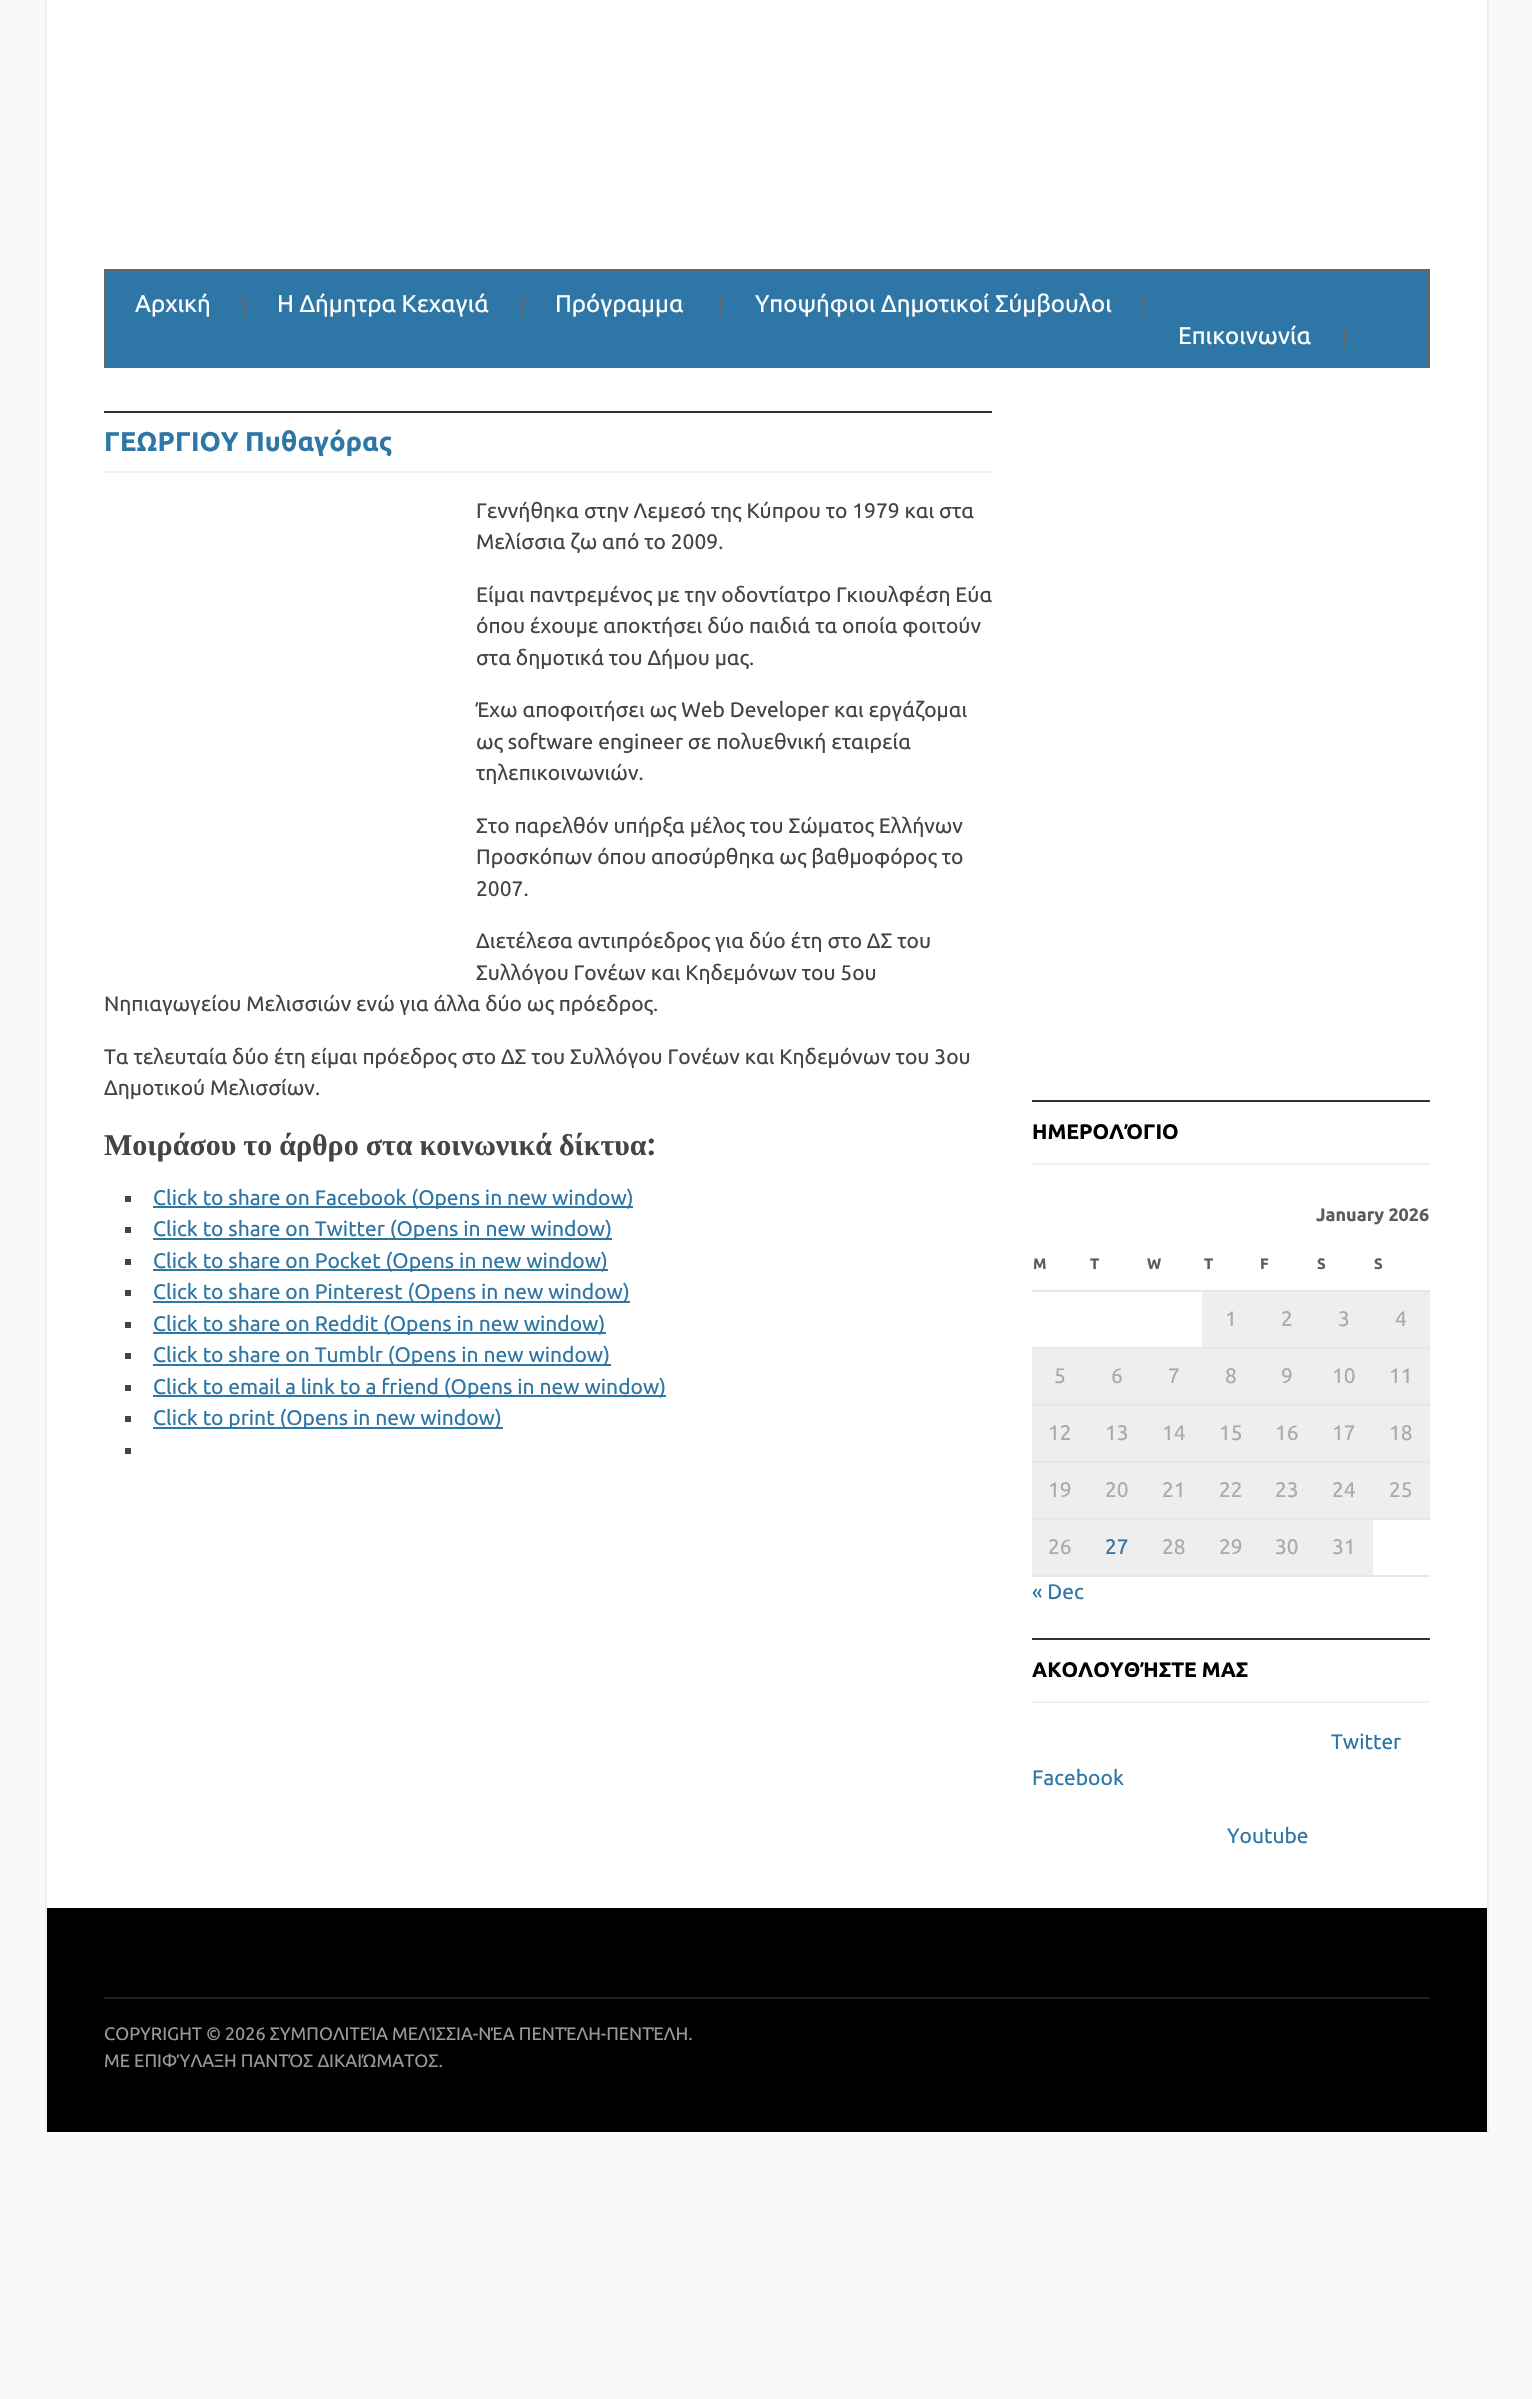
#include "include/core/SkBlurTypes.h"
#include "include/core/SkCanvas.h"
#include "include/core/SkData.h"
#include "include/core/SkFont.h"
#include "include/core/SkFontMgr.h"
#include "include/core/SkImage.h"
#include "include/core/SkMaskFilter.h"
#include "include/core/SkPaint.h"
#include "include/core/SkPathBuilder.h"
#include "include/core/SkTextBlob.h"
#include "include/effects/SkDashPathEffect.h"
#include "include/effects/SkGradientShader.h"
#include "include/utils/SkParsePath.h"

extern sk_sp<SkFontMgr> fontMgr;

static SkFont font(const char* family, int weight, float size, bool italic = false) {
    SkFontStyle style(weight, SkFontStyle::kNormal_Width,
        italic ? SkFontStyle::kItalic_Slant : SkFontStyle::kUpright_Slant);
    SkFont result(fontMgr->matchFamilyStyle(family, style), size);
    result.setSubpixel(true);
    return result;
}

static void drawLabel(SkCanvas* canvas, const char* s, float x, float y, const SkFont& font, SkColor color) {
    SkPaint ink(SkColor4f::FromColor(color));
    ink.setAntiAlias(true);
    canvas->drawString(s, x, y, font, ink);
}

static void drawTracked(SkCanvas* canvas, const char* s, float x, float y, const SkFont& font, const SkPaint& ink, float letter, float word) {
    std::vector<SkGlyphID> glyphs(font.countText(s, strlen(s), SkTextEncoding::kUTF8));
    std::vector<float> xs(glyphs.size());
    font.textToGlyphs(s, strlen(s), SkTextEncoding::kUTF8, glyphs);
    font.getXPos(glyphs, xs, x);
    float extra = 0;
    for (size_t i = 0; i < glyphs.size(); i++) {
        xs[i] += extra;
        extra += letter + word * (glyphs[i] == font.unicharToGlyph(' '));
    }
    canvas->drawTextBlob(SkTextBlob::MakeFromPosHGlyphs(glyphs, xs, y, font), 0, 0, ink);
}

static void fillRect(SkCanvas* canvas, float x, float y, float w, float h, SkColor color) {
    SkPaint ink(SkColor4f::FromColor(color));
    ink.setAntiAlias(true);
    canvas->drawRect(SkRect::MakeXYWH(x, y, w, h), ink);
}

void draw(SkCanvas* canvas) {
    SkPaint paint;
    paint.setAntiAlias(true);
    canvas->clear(0xFFF9F9F9);
    fillRect(canvas, 47, 0, 1440, 1908, 0xFFFFFFFF);
    fillRect(canvas, 1487, 0, 2, 2132, 0xFFEEECEC);
    fillRect(canvas, 45, 0, 2, 2132, 0xFFEEECEC);
    fillRect(canvas, 106, 271, 1322, 97, 0xFF2D76A6);
    fillRect(canvas, 104, 269, 1326, 2, 0xFF666666);
    fillRect(canvas, 1428, 269, 2, 99, 0xFF666666);
    fillRect(canvas, 104, 269, 2, 99, 0xFF666666);
    SkFont font1 = font("Ubuntu", 400, 24);
    drawLabel(canvas, "Αρχική", 135, 312, font1, 0xFFFFFFFF);
    SkFont font2 = font("Ubuntu", 400, 22);
    drawLabel(canvas, "|", 241, 312, font2, 0xFF666666);
    drawLabel(canvas, "H Δήμητρα Κεχαγιά", 277, 312, font1, 0xFFFFFFFF);
    drawLabel(canvas, "|", 519, 312, font2, 0xFF666666);
    drawLabel(canvas, "Πρόγραμμα", 555, 312, font1, 0xFFFFFFFF);
    drawLabel(canvas, "|", 718, 312, font2, 0xFF666666);
    drawLabel(canvas, "Υποψήφιοι Δημοτικοί Σύμβουλοι", 755, 312, font1, 0xFFFFFFFF);
    drawLabel(canvas, "|", 1142, 312, font2, 0xFF666666);
    drawLabel(canvas, "Επικοινωνία", 1178, 344, font1, 0xFFFFFFFF);
    drawLabel(canvas, "|", 1341, 344, font2, 0xFF666666);
    fillRect(canvas, 104, 411, 888, 2, 0xFF333333);
    fillRect(canvas, 104, 471, 888, 2, 0xFFF1F1F1);
    SkFont font3 = font("Ubuntu", 700, 27);
    drawLabel(canvas, "ΓΕΩΡΓΙΟΥ Πυθαγόρας", 104, 451, font3, 0xFF2D76A6);
    SkFont font4 = font("Ubuntu", 400, 21);
    drawLabel(canvas, "Γεννήθηκα στην Λεμεσό της Κύπρου το 1979 και στα", 476, 518, font4, 0xFF444444);
    drawLabel(canvas, "Μελίσσια ζω από το 2009.", 476, 549, font4, 0xFF444444);
    drawLabel(canvas, "Είμαι παντρεμένος με την οδοντίατρο Γκιουλφέση Εύα", 476, 602, font4, 0xFF444444);
    drawLabel(canvas, "όπου έχουμε αποκτήσει δύο παιδιά τα οποία φοιτούν", 476, 633, font4, 0xFF444444);
    drawLabel(canvas, "στα δημοτικά του Δήμου μας.", 476, 665, font4, 0xFF444444);
    drawLabel(canvas, "Έχω αποφοιτήσει ως Web Developer και εργάζομαι", 476, 717, font4, 0xFF444444);
    drawLabel(canvas, "ως software engineer σε πολυεθνική εταιρεία", 476, 749, font4, 0xFF444444);
    drawLabel(canvas, "τηλεπικοινωνιών.", 476, 780, font4, 0xFF444444);
    drawLabel(canvas, "Στο παρελθόν υπήρξα μέλος του Σώματος Ελλήνων", 476, 833, font4, 0xFF444444);
    drawLabel(canvas, "Προσκόπων όπου αποσύρθηκα ως βαθμοφόρος το", 476, 864, font4, 0xFF444444);
    drawLabel(canvas, "2007.", 476, 896, font4, 0xFF444444);
    drawLabel(canvas, "Διετέλεσα αντιπρόεδρος για δύο έτη στο ΔΣ του", 476, 948, font4, 0xFF444444);
    drawLabel(canvas, "Συλλόγου Γονέων και Κηδεμόνων του 5ου", 476, 980, font4, 0xFF444444);
    drawLabel(canvas, "Νηπιαγωγείου Μελισσιών ενώ για άλλα δύο ως πρόεδρος.", 104, 1011, font4, 0xFF444444);
    drawLabel(canvas, "Τα τελευταία δύο έτη είμαι πρόεδρος στο ΔΣ του Συλλόγου Γονέων και Κηδεμόνων του 3ου", 104, 1064, font4, 0xFF444444);
    drawLabel(canvas, "Δημοτικού Μελισσίων.", 104, 1095, font4, 0xFF444444);
    SkFont font5 = font("Liberation Serif", 700, 30);
    paint.setColor(0xFF444444);
    drawTracked(canvas, "Μοιράσου το άρθρο στα κοινωνικά δίκτυα", 104, 1155, font5, paint, 0, -0.5f);
    SkFont font6 = font("Merriweather", 700, 30);
    drawLabel(canvas, ":", 647, 1155, font6, 0xFF444444);
    fillRect(canvas, 125, 1196, 6, 6, 0xFF444444);
    fillRect(canvas, 153, 1206, 480, 2, 0xFF2D76A6);
    drawLabel(canvas, "Click to share on Facebook (Opens in new window)", 153, 1205, font4, 0xFF2D76A6);
    fillRect(canvas, 125, 1227, 6, 6, 0xFF444444);
    fillRect(canvas, 153, 1238, 459, 2, 0xFF2D76A6);
    drawLabel(canvas, "Click to share on Twitter (Opens in new window)", 153, 1236, font4, 0xFF2D76A6);
    fillRect(canvas, 125, 1259, 6, 6, 0xFF444444);
    fillRect(canvas, 153, 1269, 455, 2, 0xFF2D76A6);
    drawLabel(canvas, "Click to share on Pocket (Opens in new window)", 153, 1268, font4, 0xFF2D76A6);
    fillRect(canvas, 125, 1290, 6, 6, 0xFF444444);
    fillRect(canvas, 153, 1301, 477, 2, 0xFF2D76A6);
    drawLabel(canvas, "Click to share on Pinterest (Opens in new window)", 153, 1299, font4, 0xFF2D76A6);
    fillRect(canvas, 125, 1322, 6, 6, 0xFF444444);
    fillRect(canvas, 153, 1332, 453, 2, 0xFF2D76A6);
    drawLabel(canvas, "Click to share on Reddit (Opens in new window)", 153, 1331, font4, 0xFF2D76A6);
    fillRect(canvas, 125, 1353, 6, 6, 0xFF444444);
    fillRect(canvas, 153, 1364, 458, 2, 0xFF2D76A6);
    drawLabel(canvas, "Click to share on Tumblr (Opens in new window)", 153, 1362, font4, 0xFF2D76A6);
    fillRect(canvas, 125, 1385, 6, 6, 0xFF444444);
    fillRect(canvas, 153, 1395, 513, 2, 0xFF2D76A6);
    drawLabel(canvas, "Click to email a link to a friend (Opens in new window)", 153, 1394, font4, 0xFF2D76A6);
    fillRect(canvas, 125, 1416, 6, 6, 0xFF444444);
    fillRect(canvas, 153, 1427, 350, 2, 0xFF2D76A6);
    drawLabel(canvas, "Click to print (Opens in new window)", 153, 1425, font4, 0xFF2D76A6);
    fillRect(canvas, 125, 1448, 6, 6, 0xFF444444);
    fillRect(canvas, 1032, 1100, 398, 2, 0xFF333333);
    fillRect(canvas, 1032, 1163, 398, 2, 0xFFF1F1F1);
    SkFont font7 = font("Ubuntu", 700, 21);
    drawLabel(canvas, "ΗΜΕΡΟΛΌΓΙΟ", 1032, 1139, font7, 0xFF000000);
    SkFont font8 = font("Ubuntu", 700, 18);
    drawLabel(canvas, "January 2026", 1316, 1221, font8, 0xFF5C5C5C);
    fillRect(canvas, 1032, 1290, 398, 2, 0xFFEAE7DE);
    SkFont font9 = font("Ubuntu", 700, 15);
    drawLabel(canvas, "M", 1033, 1269, font9, 0xFF5C5C5C);
    drawLabel(canvas, "T", 1090, 1269, font9, 0xFF5C5C5C);
    drawLabel(canvas, "W", 1147, 1269, font9, 0xFF5C5C5C);
    drawLabel(canvas, "T", 1204, 1269, font9, 0xFF5C5C5C);
    drawLabel(canvas, "F", 1260, 1269, font9, 0xFF5C5C5C);
    drawLabel(canvas, "S", 1317, 1269, font9, 0xFF5C5C5C);
    drawLabel(canvas, "S", 1374, 1269, font9, 0xFF5C5C5C);
    fillRect(canvas, 1032, 1347, 398, 2, 0xFFEAE7DE);
    fillRect(canvas, 1202, 1292, 228, 55, 0xFFEFEEEE);
    drawLabel(canvas, "1", 1225, 1326, font4, 0xFFAAAAAA);
    drawLabel(canvas, "2", 1281, 1326, font4, 0xFFAAAAAA);
    drawLabel(canvas, "3", 1338, 1326, font4, 0xFFAAAAAA);
    drawLabel(canvas, "4", 1395, 1326, font4, 0xFFAAAAAA);
    fillRect(canvas, 1032, 1404, 398, 2, 0xFFEAE7DE);
    fillRect(canvas, 1032, 1349, 398, 55, 0xFFEFEEEE);
    drawLabel(canvas, "5", 1054, 1383, font4, 0xFFAAAAAA);
    drawLabel(canvas, "6", 1111, 1383, font4, 0xFFAAAAAA);
    drawLabel(canvas, "7", 1168, 1383, font4, 0xFFAAAAAA);
    drawLabel(canvas, "8", 1225, 1383, font4, 0xFFAAAAAA);
    drawLabel(canvas, "9", 1281, 1383, font4, 0xFFAAAAAA);
    drawLabel(canvas, "10", 1332, 1383, font4, 0xFFAAAAAA);
    drawLabel(canvas, "11", 1389, 1383, font4, 0xFFAAAAAA);
    fillRect(canvas, 1032, 1461, 398, 2, 0xFFEAE7DE);
    fillRect(canvas, 1032, 1406, 398, 55, 0xFFEFEEEE);
    drawLabel(canvas, "12", 1048, 1440, font4, 0xFFAAAAAA);
    drawLabel(canvas, "13", 1105, 1440, font4, 0xFFAAAAAA);
    drawLabel(canvas, "14", 1162, 1440, font4, 0xFFAAAAAA);
    drawLabel(canvas, "15", 1219, 1440, font4, 0xFFAAAAAA);
    drawLabel(canvas, "16", 1275, 1440, font4, 0xFFAAAAAA);
    drawLabel(canvas, "17", 1332, 1440, font4, 0xFFAAAAAA);
    drawLabel(canvas, "18", 1389, 1440, font4, 0xFFAAAAAA);
    fillRect(canvas, 1032, 1518, 398, 2, 0xFFEAE7DE);
    fillRect(canvas, 1032, 1463, 398, 55, 0xFFEFEEEE);
    drawLabel(canvas, "19", 1048, 1497, font4, 0xFFAAAAAA);
    drawLabel(canvas, "20", 1105, 1497, font4, 0xFFAAAAAA);
    drawLabel(canvas, "21", 1162, 1497, font4, 0xFFAAAAAA);
    drawLabel(canvas, "22", 1219, 1497, font4, 0xFFAAAAAA);
    drawLabel(canvas, "23", 1275, 1497, font4, 0xFFAAAAAA);
    drawLabel(canvas, "24", 1332, 1497, font4, 0xFFAAAAAA);
    drawLabel(canvas, "25", 1389, 1497, font4, 0xFFAAAAAA);
    fillRect(canvas, 1032, 1575, 398, 2, 0xFFEAE7DE);
    fillRect(canvas, 1032, 1520, 341, 55, 0xFFEFEEEE);
    drawLabel(canvas, "26", 1048, 1554, font4, 0xFFAAAAAA);
    drawLabel(canvas, "27", 1105, 1554, font4, 0xFF2D76A6);
    drawLabel(canvas, "28", 1162, 1554, font4, 0xFFAAAAAA);
    drawLabel(canvas, "29", 1219, 1554, font4, 0xFFAAAAAA);
    drawLabel(canvas, "30", 1275, 1554, font4, 0xFFAAAAAA);
    drawLabel(canvas, "31", 1332, 1554, font4, 0xFFAAAAAA);
    drawLabel(canvas, "« Dec", 1032, 1599, font4, 0xFF2D76A6);
    fillRect(canvas, 1032, 1638, 398, 2, 0xFF333333);
    fillRect(canvas, 1032, 1701, 398, 2, 0xFFF1F1F1);
    drawLabel(canvas, "ΑΚΟΛΟΥΘΉΣΤΕ ΜΑΣ", 1032, 1677, font7, 0xFF000000);
    drawLabel(canvas, "Twitter", 1331, 1749, font4, 0xFF2D76A6);
    drawLabel(canvas, "Facebook", 1032, 1785, font4, 0xFF2D76A6);
    drawLabel(canvas, "Youtube", 1227, 1843, font4, 0xFF2D76A6);
    fillRect(canvas, 47, 1908, 1440, 224, 0xFF000000);
    fillRect(canvas, 104, 1997, 1326, 2, 0xFF222222);
    SkFont font10 = font("Ubuntu", 400, 18);
    drawLabel(canvas, "COPYRIGHT © 2026 ΣΥΜΠΟΛΙΤΕΊΑ ΜΕΛΊΣΣΙΑ-ΝΈΑ ΠΕΝΤΈΛΗ-ΠΕΝΤΈΛΗ.", 104, 2040, font10, 0xFF999999);
    drawLabel(canvas, "ΜΕ ΕΠΙΦΎΛΑΞΗ ΠΑΝΤΌΣ ΔΙΚΑΙΏΜΑΤΟΣ.", 104, 2067, font10, 0xFF999999);
}
